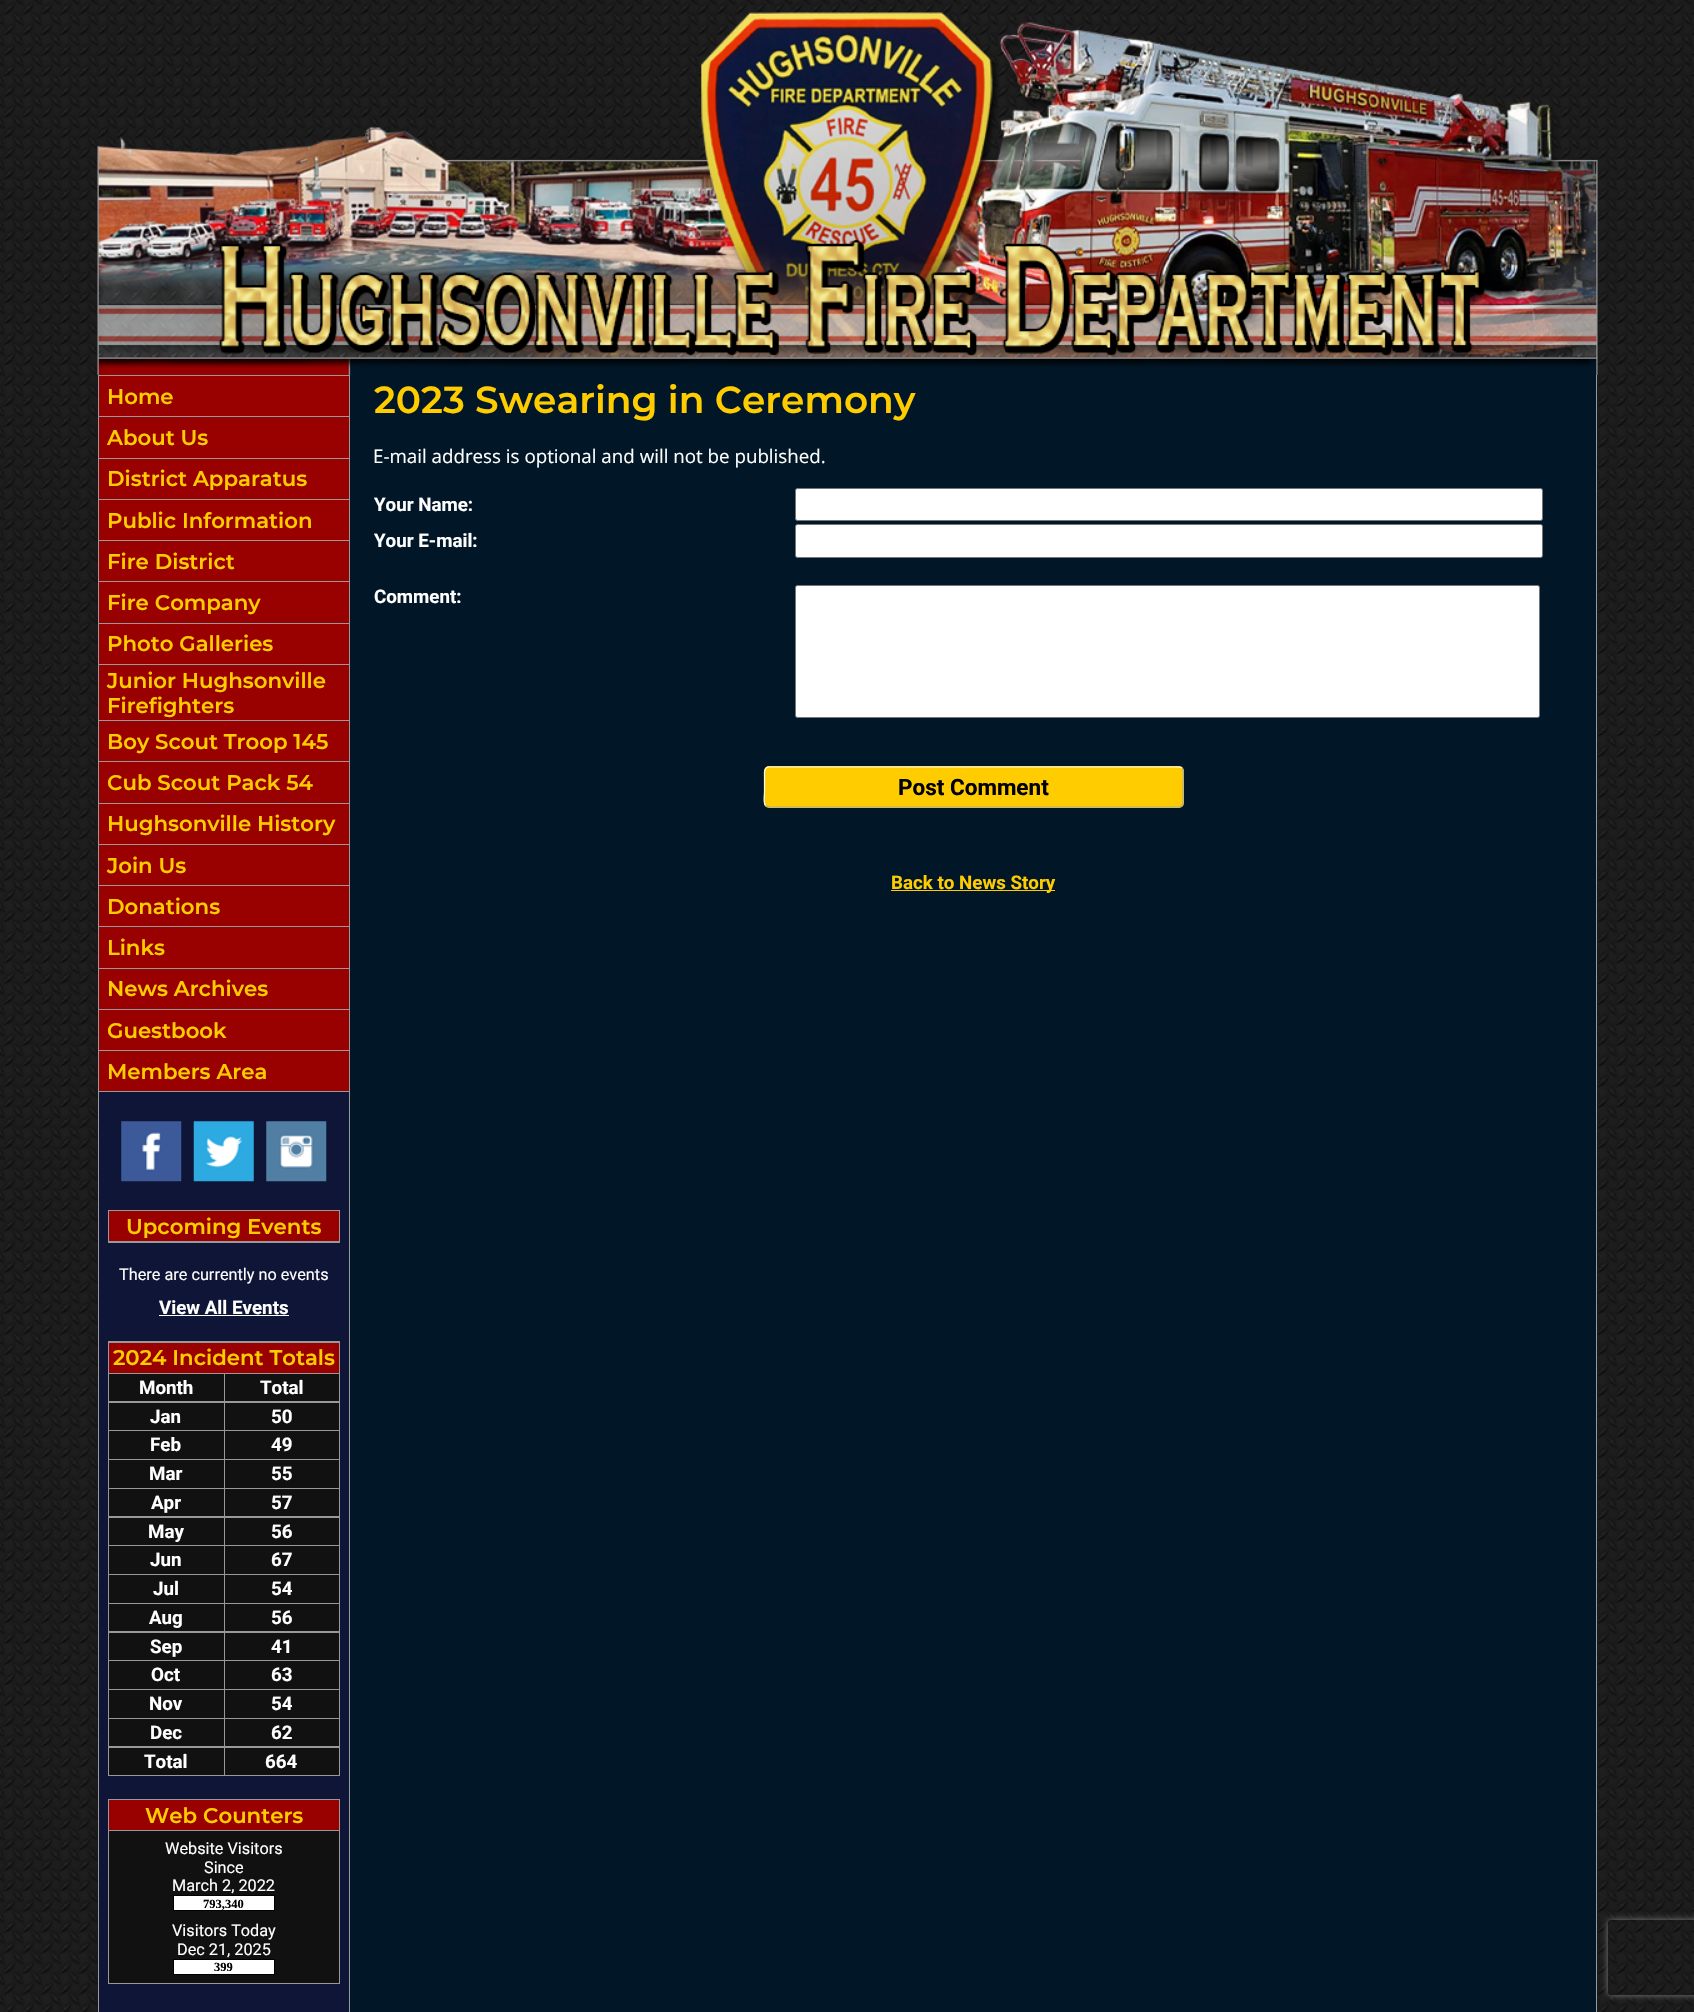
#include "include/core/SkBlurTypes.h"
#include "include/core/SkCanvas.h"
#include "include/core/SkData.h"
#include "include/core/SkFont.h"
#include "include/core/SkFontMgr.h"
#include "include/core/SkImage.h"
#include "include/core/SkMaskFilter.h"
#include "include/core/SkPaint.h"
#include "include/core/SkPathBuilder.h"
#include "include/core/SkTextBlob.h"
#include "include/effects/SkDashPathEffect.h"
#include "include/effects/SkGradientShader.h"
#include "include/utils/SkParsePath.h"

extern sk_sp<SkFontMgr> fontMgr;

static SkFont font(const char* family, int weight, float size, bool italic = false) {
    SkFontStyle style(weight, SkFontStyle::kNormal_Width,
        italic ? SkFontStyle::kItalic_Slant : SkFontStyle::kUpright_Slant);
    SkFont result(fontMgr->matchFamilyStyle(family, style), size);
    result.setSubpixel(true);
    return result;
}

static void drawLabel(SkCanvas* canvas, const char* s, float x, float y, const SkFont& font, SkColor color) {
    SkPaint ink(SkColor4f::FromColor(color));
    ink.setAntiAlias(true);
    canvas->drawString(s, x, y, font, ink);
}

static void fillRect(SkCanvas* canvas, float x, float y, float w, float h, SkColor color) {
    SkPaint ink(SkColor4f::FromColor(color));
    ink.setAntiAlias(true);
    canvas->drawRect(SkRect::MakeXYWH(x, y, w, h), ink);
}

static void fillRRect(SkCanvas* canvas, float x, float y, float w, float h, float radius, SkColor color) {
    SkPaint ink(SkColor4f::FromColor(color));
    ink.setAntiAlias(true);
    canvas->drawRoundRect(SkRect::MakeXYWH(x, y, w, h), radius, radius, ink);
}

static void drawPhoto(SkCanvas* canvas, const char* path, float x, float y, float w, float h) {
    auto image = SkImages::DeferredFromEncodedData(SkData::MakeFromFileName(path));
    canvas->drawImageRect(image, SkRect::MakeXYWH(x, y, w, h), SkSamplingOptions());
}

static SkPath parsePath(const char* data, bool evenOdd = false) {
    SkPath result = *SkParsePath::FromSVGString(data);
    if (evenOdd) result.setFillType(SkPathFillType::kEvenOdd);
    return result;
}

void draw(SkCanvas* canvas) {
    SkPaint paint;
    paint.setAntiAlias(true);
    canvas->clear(0xFFFFFFFF);
    drawPhoto(canvas, "assets/img1.png", 0, 0, 1694, 2012);
    drawPhoto(canvas, "assets/img2.png", 97, 12, 1501, 363);
    fillRect(canvas, 98, 375, 1, 1637, 0xFF999999);
    fillRect(canvas, 99, 1092, 250, 920, 0xFF0E1537);
    fillRect(canvas, 99, 375, 250, 1, 0xFF999999);
    fillRect(canvas, 99, 376, 250, 715, 0xFF990000);
    SkFont font1 = font("Montserrat", 600, 21.25f);
    drawLabel(canvas, "Home", 107, 404, font1, 0xFFFFCC00);
    fillRect(canvas, 99, 416, 250, 1, 0xFF999999);
    drawLabel(canvas, "About Us", 107, 445, font1, 0xFFFFCC00);
    fillRect(canvas, 99, 458, 250, 1, 0xFF999999);
    drawLabel(canvas, "District Apparatus", 107, 486, font1, 0xFFFFCC00);
    fillRect(canvas, 99, 499, 250, 1, 0xFF999999);
    drawLabel(canvas, "Public Information", 107, 528, font1, 0xFFFFCC00);
    fillRect(canvas, 99, 540, 250, 1, 0xFF999999);
    drawLabel(canvas, "Fire District", 107, 569, font1, 0xFFFFCC00);
    fillRect(canvas, 99, 581, 250, 1, 0xFF999999);
    drawLabel(canvas, "Fire Company", 107, 610, font1, 0xFFFFCC00);
    fillRect(canvas, 99, 623, 250, 1, 0xFF999999);
    drawLabel(canvas, "Photo Galleries", 107, 651, font1, 0xFFFFCC00);
    fillRect(canvas, 99, 664, 250, 1, 0xFF999999);
    drawLabel(canvas, "Junior Hughsonville", 107, 688, font1, 0xFFFFCC00);
    drawLabel(canvas, "Firefighters", 107, 713, font1, 0xFFFFCC00);
    fillRect(canvas, 99, 720, 250, 1, 0xFF999999);
    drawLabel(canvas, "Boy Scout Troop 145", 107, 749, font1, 0xFFFFCC00);
    fillRect(canvas, 99, 761, 250, 1, 0xFF999999);
    drawLabel(canvas, "Cub Scout Pack 54", 107, 790, font1, 0xFFFFCC00);
    fillRect(canvas, 99, 803, 250, 1, 0xFF999999);
    drawLabel(canvas, "Hughsonville History", 107, 831, font1, 0xFFFFCC00);
    fillRect(canvas, 99, 844, 250, 1, 0xFF999999);
    drawLabel(canvas, "Join Us", 107, 873, font1, 0xFFFFCC00);
    fillRect(canvas, 99, 885, 250, 1, 0xFF999999);
    drawLabel(canvas, "Donations", 107, 914, font1, 0xFFFFCC00);
    fillRect(canvas, 99, 926, 250, 1, 0xFF999999);
    drawLabel(canvas, "Links", 107, 955, font1, 0xFFFFCC00);
    fillRect(canvas, 99, 968, 250, 1, 0xFF999999);
    drawLabel(canvas, "News Archives", 107, 996, font1, 0xFFFFCC00);
    fillRect(canvas, 99, 1009, 250, 1, 0xFF999999);
    drawLabel(canvas, "Guestbook", 107, 1038, font1, 0xFFFFCC00);
    fillRect(canvas, 99, 1050, 250, 1, 0xFF999999);
    drawLabel(canvas, "Members Area", 107, 1079, font1, 0xFFFFCC00);
    fillRect(canvas, 99, 1091, 250, 1, 0xFF999999);
    drawPhoto(canvas, "assets/img3.png", 121, 1121, 61, 61);
    drawPhoto(canvas, "assets/img4.png", 193, 1121, 61, 61);
    drawPhoto(canvas, "assets/img5.png", 266, 1121, 61, 61);
    fillRect(canvas, 108, 1210, 232, 33, 0xFF999999);
    fillRect(canvas, 109, 1211, 230, 30, 0xFF990000);
    drawLabel(canvas, "Upcoming Events", 126, 1234, font1, 0xFFFFCC00);
    SkFont font2 = font("Roboto", 400, 16.25f);
    drawLabel(canvas, "There are currently no events", 119, 1280, font2, 0xFFFFFFFF);
    SkFont font3 = font("Roboto", 700, 18.75f);
    drawLabel(canvas, "View All Events", 159, 1314, font3, 0xFFFFFFFF);
    fillRect(canvas, 159, 1315, 130, 1, 0xFFFFFFFF);
    fillRect(canvas, 108, 1341, 232, 435, 0xFF999999);
    fillRect(canvas, 109, 1343, 230, 30, 0xFF990000);
    drawLabel(canvas, "2024 Incident Totals", 113, 1365, font1, 0xFFFFCC00);
    fillRect(canvas, 109, 1374, 115, 27, 0xFF111111);
    drawLabel(canvas, "Month", 139, 1394, font3, 0xFFFFFFFF);
    fillRect(canvas, 225, 1374, 114, 27, 0xFF111111);
    drawLabel(canvas, "Total", 260, 1394, font3, 0xFFFFFFFF);
    fillRect(canvas, 109, 1403, 115, 27, 0xFF111111);
    drawLabel(canvas, "Jan", 150, 1423, font3, 0xFFFFFFFF);
    fillRect(canvas, 225, 1403, 114, 27, 0xFF111111);
    drawLabel(canvas, "50", 271, 1423, font3, 0xFFFFFFFF);
    fillRect(canvas, 109, 1431, 115, 28, 0xFF111111);
    drawLabel(canvas, "Feb", 150, 1451, font3, 0xFFFFFFFF);
    fillRect(canvas, 225, 1431, 114, 28, 0xFF111111);
    drawLabel(canvas, "49", 271, 1451, font3, 0xFFFFFFFF);
    fillRect(canvas, 109, 1460, 115, 28, 0xFF111111);
    drawLabel(canvas, "Mar", 149, 1480, font3, 0xFFFFFFFF);
    fillRect(canvas, 225, 1460, 114, 28, 0xFF111111);
    drawLabel(canvas, "55", 271, 1480, font3, 0xFFFFFFFF);
    fillRect(canvas, 109, 1489, 115, 27, 0xFF111111);
    drawLabel(canvas, "Apr", 151, 1509, font3, 0xFFFFFFFF);
    fillRect(canvas, 225, 1489, 114, 27, 0xFF111111);
    drawLabel(canvas, "57", 271, 1509, font3, 0xFFFFFFFF);
    fillRect(canvas, 109, 1518, 115, 27, 0xFF111111);
    drawLabel(canvas, "May", 148, 1538, font3, 0xFFFFFFFF);
    fillRect(canvas, 225, 1518, 114, 27, 0xFF111111);
    drawLabel(canvas, "56", 271, 1538, font3, 0xFFFFFFFF);
    fillRect(canvas, 109, 1546, 115, 28, 0xFF111111);
    drawLabel(canvas, "Jun", 150, 1566, font3, 0xFFFFFFFF);
    fillRect(canvas, 225, 1546, 114, 28, 0xFF111111);
    drawLabel(canvas, "67", 271, 1566, font3, 0xFFFFFFFF);
    fillRect(canvas, 109, 1575, 115, 28, 0xFF111111);
    drawLabel(canvas, "Jul", 153, 1595, font3, 0xFFFFFFFF);
    fillRect(canvas, 225, 1575, 114, 28, 0xFF111111);
    drawLabel(canvas, "54", 271, 1595, font3, 0xFFFFFFFF);
    fillRect(canvas, 109, 1604, 115, 27, 0xFF111111);
    drawLabel(canvas, "Aug", 149, 1624, font3, 0xFFFFFFFF);
    fillRect(canvas, 225, 1604, 114, 27, 0xFF111111);
    drawLabel(canvas, "56", 271, 1624, font3, 0xFFFFFFFF);
    fillRect(canvas, 109, 1633, 115, 27, 0xFF111111);
    drawLabel(canvas, "Sep", 150, 1653, font3, 0xFFFFFFFF);
    fillRect(canvas, 225, 1633, 114, 27, 0xFF111111);
    drawLabel(canvas, "41", 271, 1653, font3, 0xFFFFFFFF);
    fillRect(canvas, 109, 1661, 115, 28, 0xFF111111);
    drawLabel(canvas, "Oct", 151, 1681, font3, 0xFFFFFFFF);
    fillRect(canvas, 225, 1661, 114, 28, 0xFF111111);
    drawLabel(canvas, "63", 271, 1681, font3, 0xFFFFFFFF);
    fillRect(canvas, 109, 1690, 115, 28, 0xFF111111);
    drawLabel(canvas, "Nov", 149, 1710, font3, 0xFFFFFFFF);
    fillRect(canvas, 225, 1690, 114, 28, 0xFF111111);
    drawLabel(canvas, "54", 271, 1710, font3, 0xFFFFFFFF);
    fillRect(canvas, 109, 1719, 115, 27, 0xFF111111);
    drawLabel(canvas, "Dec", 150, 1739, font3, 0xFFFFFFFF);
    fillRect(canvas, 225, 1719, 114, 27, 0xFF111111);
    drawLabel(canvas, "62", 271, 1739, font3, 0xFFFFFFFF);
    fillRect(canvas, 109, 1748, 115, 27, 0xFF111111);
    drawLabel(canvas, "Total", 144, 1768, font3, 0xFFFFFFFF);
    fillRect(canvas, 225, 1748, 114, 27, 0xFF111111);
    drawLabel(canvas, "664", 265, 1768, font3, 0xFFFFFFFF);
    fillRect(canvas, 108, 1799, 232, 185, 0xFF999999);
    fillRect(canvas, 109, 1800, 230, 30, 0xFF990000);
    drawLabel(canvas, "Web Counters", 145, 1823, font1, 0xFFFFCC00);
    fillRect(canvas, 109, 1831, 230, 152, 0xFF111111);
    drawLabel(canvas, "Website Visitors", 165, 1854, font2, 0xFFFFFFFF);
    drawLabel(canvas, "Since", 204, 1873, font2, 0xFFFFFFFF);
    drawLabel(canvas, "March 2, 2022", 172, 1891, font2, 0xFFFFFFFF);
    fillRect(canvas, 173, 1895, 102, 16, 0xFF000000);
    fillRect(canvas, 174, 1896, 100, 14, 0xFFFFFFFF);
    SkFont font4 = font("Liberation Serif", 700, 12.5f);
    drawLabel(canvas, "793,340", 203, 1908, font4, 0xFF000000);
    drawLabel(canvas, "Visitors Today", 172, 1936, font2, 0xFFFFFFFF);
    drawLabel(canvas, "Dec 21, 2025", 177, 1955, font2, 0xFFFFFFFF);
    fillRect(canvas, 173, 1959, 102, 16, 0xFF000000);
    fillRect(canvas, 174, 1960, 100, 14, 0xFFFFFFFF);
    drawLabel(canvas, "399", 214, 1971, font4, 0xFF000000);
    fillRect(canvas, 349, 375, 1, 1637, 0xFF999999);
    fillRect(canvas, 350, 375, 1246, 1637, 0xFF011728);
    SkFont font5 = font("Montserrat", 600, 37.5f);
    drawLabel(canvas, "2023 Swearing in Ceremony", 374, 413, font5, 0xFFFFCC00);
    SkFont font6 = font("Open Sans", 400, 18.75f);
    drawLabel(canvas, "E-mail address is optional and will not be published.", 373, 463, font6, 0xFFFFFFFF);
    drawLabel(canvas, "Your Name:", 374, 511, font3, 0xFFFFFFFF);
    paint.setColor(0xFFFFFFFF);
    canvas->drawRoundRect(SkRect::MakeXYWH(795.5f, 488.5f, 747, 32), 2, 2, paint);
    paint.setStroke(true);
    paint.setStrokeWidth(1);
    paint.setColor(0xFF767676);
    canvas->drawRoundRect(SkRect::MakeXYWH(795.5f, 488.5f, 747, 32), 2, 2, paint);
    drawLabel(canvas, "Your E-mail:", 374, 547, font3, 0xFFFFFFFF);
    paint.setStroke(false);
    paint.setColor(0xFFFFFFFF);
    canvas->drawRoundRect(SkRect::MakeXYWH(795.5f, 524.5f, 747, 33), 2, 2, paint);
    paint.setStroke(true);
    paint.setColor(0xFF767676);
    canvas->drawRoundRect(SkRect::MakeXYWH(795.5f, 524.5f, 747, 33), 2, 2, paint);
    drawLabel(canvas, "Comment:", 374, 603, font3, 0xFFFFFFFF);
    paint.setStroke(false);
    paint.setColor(0xFFFFFFFF);
    canvas->drawRoundRect(SkRect::MakeXYWH(795.5f, 585.5f, 744, 132), 2, 2, paint);
    paint.setStroke(true);
    paint.setColor(0xFF767676);
    canvas->drawRoundRect(SkRect::MakeXYWH(795.5f, 585.5f, 744, 132), 2, 2, paint);
    fillRRect(canvas, 764, 766, 420, 42, 5, 0xFFFFCC00);
    paint.setStrokeWidth(1.2f);
    paint.setColor(0xFFAAAAAA);
    canvas->drawPath(parsePath("M1182 768C1184.5 771 1183 778.5 1183 781.5V797.5C1183 800.5 1184 806 1179.5 807H769L765.5 805.5"), paint);
    paint.setColor(0xFFFFFFFF);
    canvas->drawPath(parsePath("M765.5 805.5C763 803 764.5 795 764.5 792V776.5C764.5 773 763.5 768 768 767H1179L1182 768"), paint);
    SkFont font7 = font("Roboto", 700, 22.5f);
    drawLabel(canvas, "Post Comment", 898, 795, font7, 0xFF000000);
    fillRect(canvas, 891, 890, 164, 1, 0xFFFFCC00);
    drawLabel(canvas, "Back to News Story", 891, 889, font3, 0xFFFFCC00);
    fillRect(canvas, 1596, 375, 1, 1637, 0xFF999999);
    canvas->save();
    canvas->clipPath(parsePath("M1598 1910H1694V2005H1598ZM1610.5 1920H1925.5C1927 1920 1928 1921 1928 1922.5V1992.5C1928 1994 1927 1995 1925.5 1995H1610.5C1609 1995 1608 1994 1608 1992.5V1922.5C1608 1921 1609 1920 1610.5 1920Z", true), true);
    paint.setStroke(false);
    paint.setColor(0xFF808080);
    paint.setMaskFilter(SkMaskFilter::MakeBlur(kNormal_SkBlurStyle, 3));
    canvas->drawRoundRect(SkRect::MakeXYWH(1608, 1920, 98, 75), 2.5f, 2.5f, paint);
    paint.setMaskFilter(nullptr);
    canvas->restore();
}
